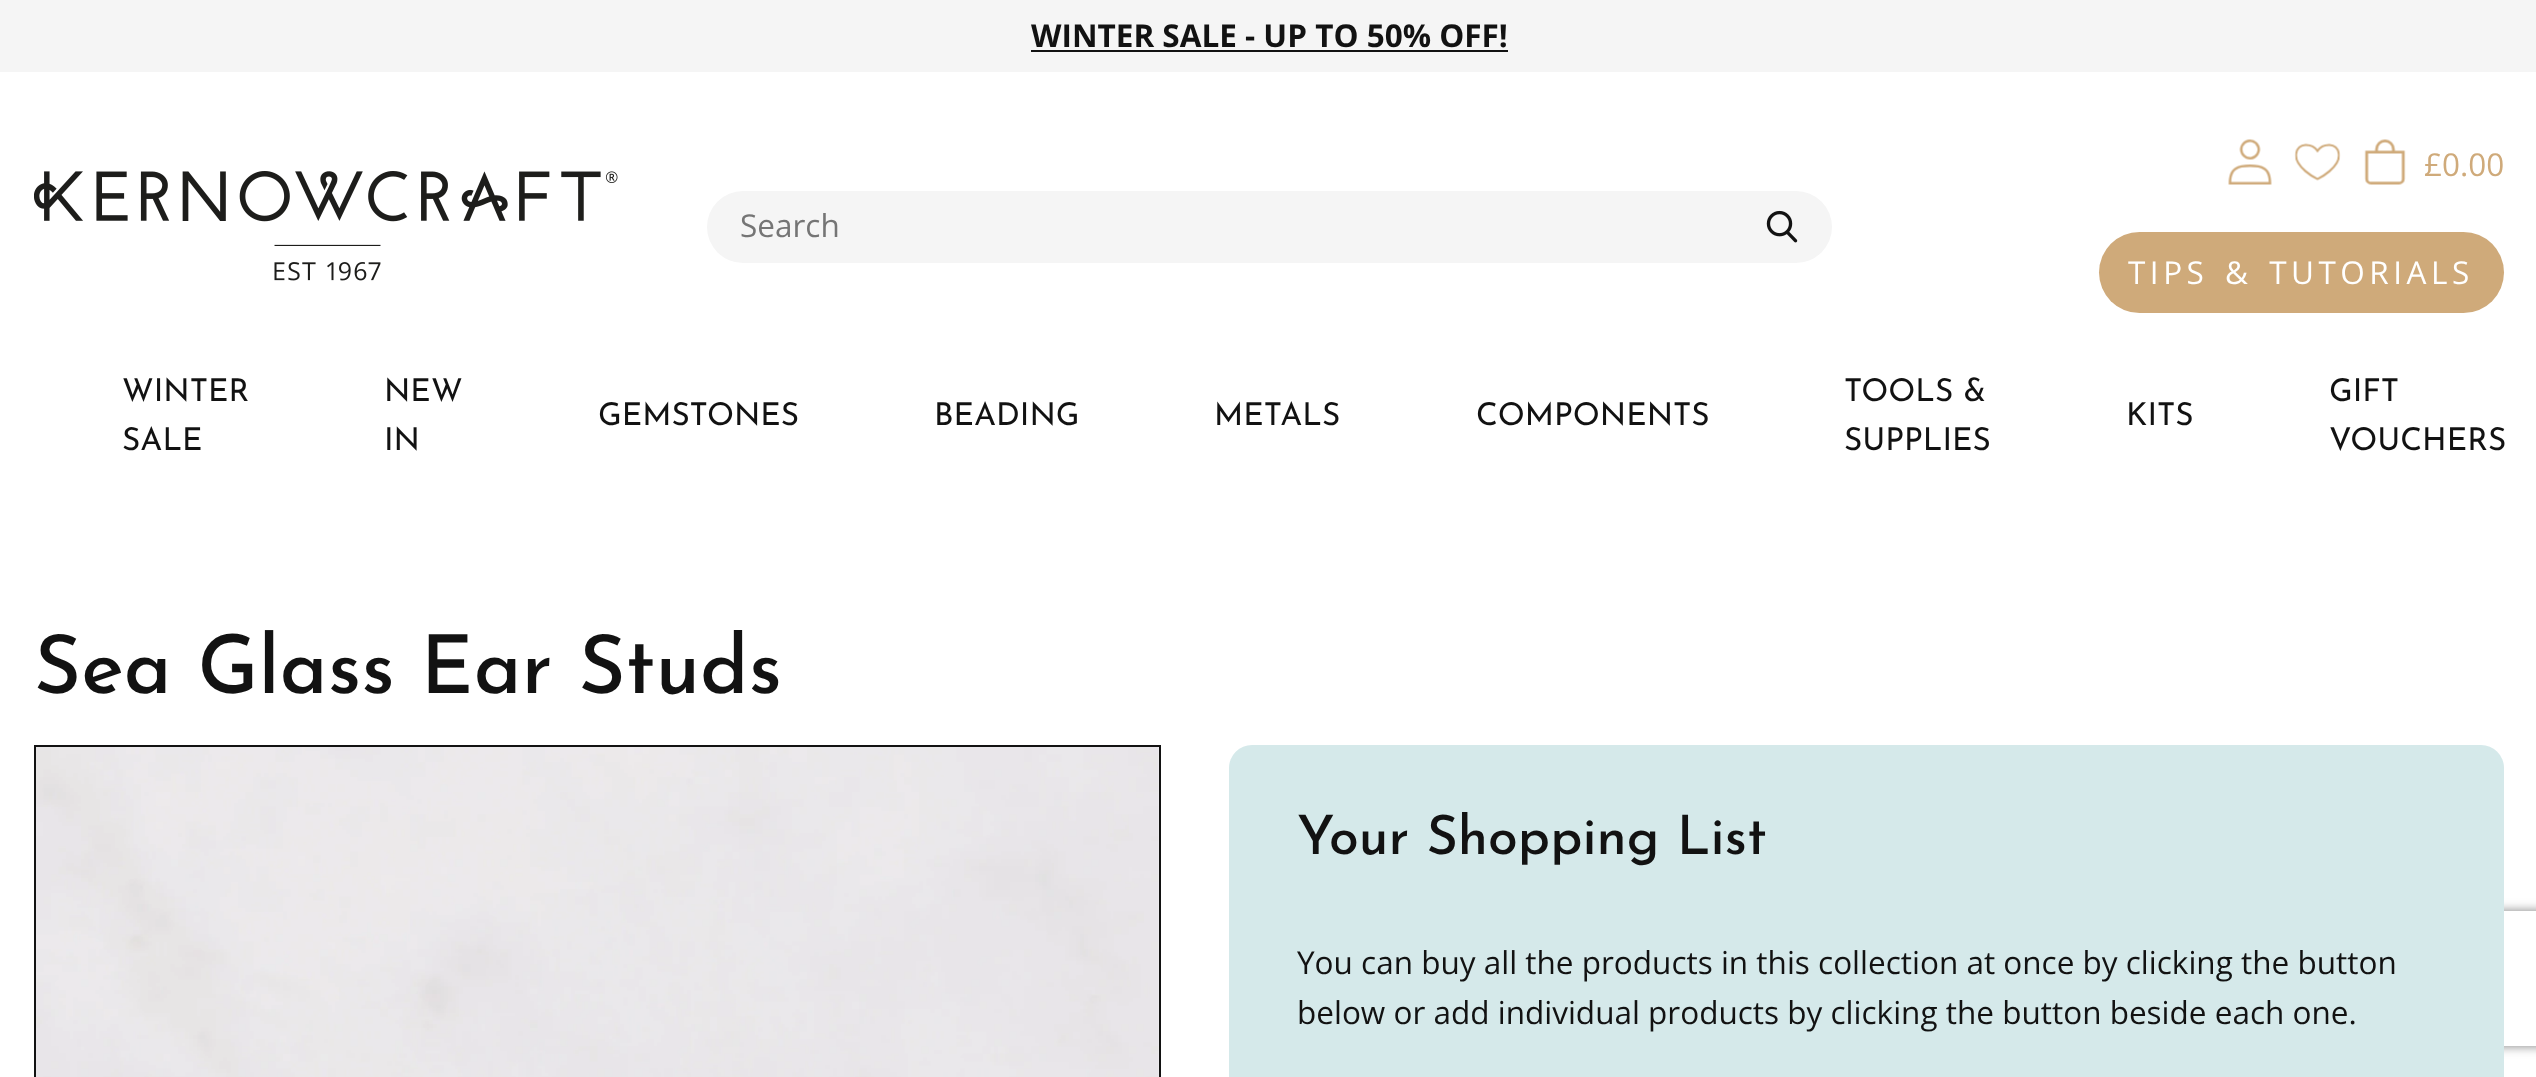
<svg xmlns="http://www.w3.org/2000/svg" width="2536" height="1077">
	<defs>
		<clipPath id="clip1"><path d="M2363 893H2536V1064H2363ZM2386 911H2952C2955 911 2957 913 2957 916V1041C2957 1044 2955 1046 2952 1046H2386C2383 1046 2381 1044 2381 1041V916C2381 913 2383 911 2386 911Z" clip-rule="evenodd" /></clipPath>
	</defs>
	<rect width="100%" height="100%" fill="#FFFFFF" />
	<rect x="0" y="0" width="2536" height="72" fill="#F5F5F5" />
	<text x="1031" y="47" font-family="Open Sans" font-size="31.5" font-weight="700" fill="#121212">WINTER SALE - UP TO 50% OFF!</text>
	<rect x="1031" y="50" width="477" height="2" fill="#121212" />
	<image x="34" y="171" width="584" height="110" href="assets/img1.png" />
	<rect x="707" y="191" width="1125" height="72" rx="36" fill="#F5F5F5" />
	<text x="740" y="237" font-family="Open Sans" font-size="31.5" fill="#757575">Search</text>
	<image x="1766" y="210" width="32" height="33" href="assets/img2.png" />
	<image x="2228" y="139" width="44" height="46" href="assets/img3.png" />
	<image x="2294" y="143" width="47" height="38" href="assets/img4.png" />
	<image x="2364" y="139" width="42" height="46" href="assets/img5.png" />
	<text x="2424" y="176" font-family="Open Sans" font-size="31.5" fill="#CFAA7A">£0.00</text>
	<rect x="2099" y="232" width="405" height="81" rx="40.5" fill="#CFAA7A" />
	<text x="2128" y="284" word-spacing="4" font-family="Open Sans" font-size="31.5" letter-spacing="4.5" fill="#FFFFFF">TIPS &amp; TUTORIALS</text>
	<g font-family="Josefin Sans" font-size="31.5" fill="#121212">
		<text x="122" y="401">WINTER</text>
		<text x="122" y="450">SALE</text>
		<text x="384" y="401">NEW</text>
		<text x="384" y="450">IN</text>
		<text x="598" y="425">GEMSTONES</text>
		<text x="934" y="425">BEADING</text>
		<text x="1214" y="425">METALS</text>
		<text x="1476" y="425">COMPONENTS</text>
		<text x="1844" y="401">TOOLS &amp;</text>
		<text x="1844" y="450">SUPPLIES</text>
		<text x="2126" y="425">KITS</text>
		<text x="2329" y="401">GIFT</text>
		<text x="2329" y="450">VOUCHERS</text>
	</g>
	<text x="34" y="693" font-family="Josefin Sans" font-size="81" font-weight="500" fill="#121212">Sea Glass Ear Studs</text>
	<rect x="35" y="746" width="1125" height="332" fill="none" stroke="#121212" stroke-width="2" />
	<image x="36" y="747" width="1123" height="330" href="assets/img6.png" />
	<g clip-path="url(#clip1)">
		<rect x="2381" y="911" width="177" height="135" rx="5" fill="#808080" filter="blur(5.5px)" />
	</g>
	<rect x="1229" y="745" width="1275" height="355" rx="23" fill="#D5E9EA" />
	<text x="1297" y="854" font-family="Josefin Sans" font-size="54" font-weight="500" fill="#121212">Your Shopping List</text>
	<g font-family="Open Sans" font-size="31.5" fill="#121212">
		<text x="1297" y="974">You can buy all the products in this collection at once by clicking the button</text>
		<text x="1297" y="1024">below or add individual products by clicking the button beside each one.</text>
	</g>
</svg>
